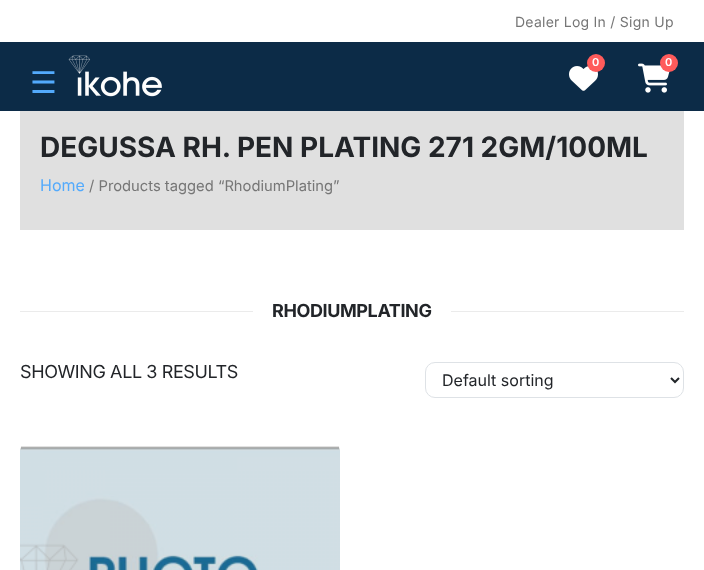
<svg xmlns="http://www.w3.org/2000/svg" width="704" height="570">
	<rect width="100%" height="100%" fill="#FFFFFF" />
	<rect x="0" y="42" width="704" height="69" fill="#0C2B47" />
	<text x="515" y="27" font-family="Inter" font-size="14" letter-spacing="0.25" fill="#767676">Dealer Log In / Sign Up</text>
	<image x="569" y="66" width="29" height="25" href="assets/img1.png" />
	<circle cx="596" cy="63" r="9" fill="#FF5B5B" />
	<text x="592" y="66" font-family="Inter" font-size="11" font-weight="600" fill="#FFFFFF">0</text>
	<image x="638" y="63" width="32" height="30" href="assets/img2.png" />
	<circle cx="669" cy="63" r="9" fill="#FF5B5B" />
	<text x="665" y="66" font-family="Inter" font-size="11" font-weight="600" fill="#FFFFFF">0</text>
	<text x="30" y="93" font-family="DejaVu Sans" font-size="30" fill="#53AAFC">☰</text>
	<image x="68" y="55" width="94" height="42" href="assets/img3.png" />
	<rect x="20" y="111" width="664" height="119" fill="#E0E0E0" />
	<text x="40" y="157" font-family="Inter" font-size="28" font-weight="700" fill="#222529">DEGUSSA RH. PEN PLATING 271 2GM/100ML</text>
	<text x="40" y="191" font-family="Inter" font-size="16" fill="#53AAFC">Home</text>
	<text x="89" y="191" font-family="Inter" font-size="14.75" fill="#767676">/ Products tagged “RhodiumPlating”</text>
	<rect x="20" y="311" width="233" height="1" fill="#EBEBEB" />
	<text x="272" y="317" font-family="Inter" font-size="18" font-weight="700" letter-spacing="-0.4" fill="#222529">RHODIUMPLATING</text>
	<rect x="451" y="311" width="233" height="1" fill="#EBEBEB" />
	<text x="20" y="378" font-family="Inter" font-size="18" letter-spacing="-0.4" fill="#222529">SHOWING ALL 3 RESULTS</text>
	<rect x="425.5" y="362.5" width="258" height="35" rx="9.5" fill="none" stroke="#DEE2E6" />
	<path d="M671 378L675 382L679 378" fill="none" stroke="#212529" stroke-width="2" />
	<text x="442" y="386" font-family="Inter" font-size="16" fill="#222529">Default sorting</text>
	<image x="20" y="446" width="320" height="124" href="assets/img4.png" />
</svg>
